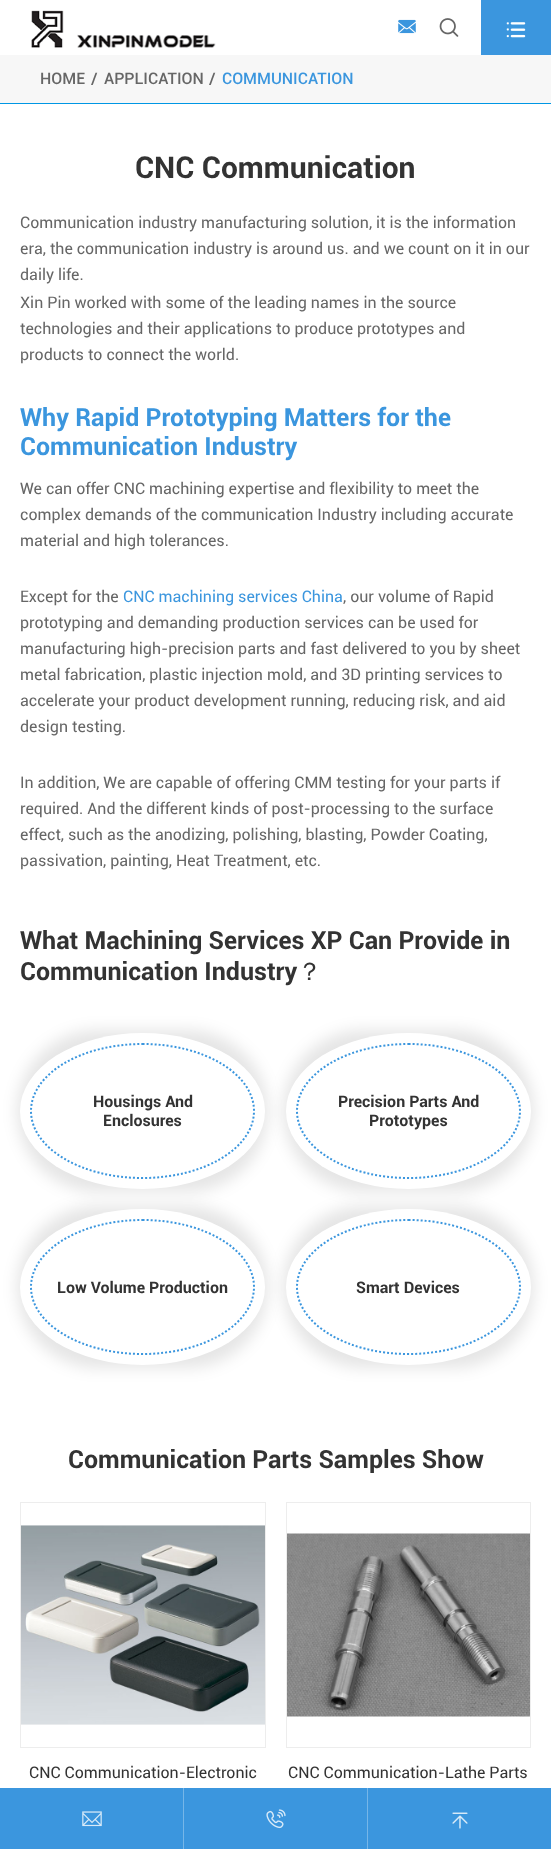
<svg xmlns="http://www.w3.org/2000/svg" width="551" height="1849">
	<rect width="100%" height="100%" fill="#FFFFFF" />
	<image x="31" y="10" width="185" height="38" href="assets/img1.png" />
	<image x="398" y="19" width="18" height="15" href="assets/img2.png" />
	<image x="439" y="18" width="20" height="19" href="assets/img3.png" />
	<rect x="481" y="0" width="70" height="55" fill="#3B96DE" />
	<image x="506" y="22" width="20" height="16" href="assets/img4.png" />
	<rect x="0" y="55" width="551" height="48" fill="#F7F7F7" />
	<rect x="0" y="103" width="551" height="1" fill="#0097E4" />
	<g font-family="Roboto" font-size="16" font-weight="500" fill="#666666">
		<text x="40" y="84">HOME</text>
		<text x="91" y="84">/</text>
		<text x="104" y="84">APPLICATION</text>
		<text x="209" y="84">/</text>
	</g>
	<text x="222" y="84" font-family="Roboto" font-size="16" font-weight="500" fill="#3B96DE">COMMUNICATION</text>
	<text x="135" y="178" font-family="Roboto" font-size="30" font-weight="700" fill="#333333">CNC Communication</text>
	<g font-family="Roboto" font-size="16" fill="#666666">
		<text x="20" y="228">Communication industry manufacturing solution, it is the information</text>
		<text x="20" y="254">era, the communication industry is around us. and we count on it in our</text>
		<text x="20" y="280">daily life.</text>
		<text x="20" y="308">Xin Pin worked with some of the leading names in the source</text>
		<text x="20" y="334">technologies and their applications to produce prototypes and</text>
		<text x="20" y="360">products to connect the world.</text>
	</g>
	<g font-family="Roboto" font-size="25" font-weight="700" fill="#3B96DE">
		<text x="20" y="426">Why Rapid Prototyping Matters for the</text>
		<text x="20" y="455">Communication Industry</text>
	</g>
	<g font-family="Roboto" font-size="16" fill="#666666">
		<text x="20" y="494">We can offer CNC machining expertise and flexibility to meet the</text>
		<text x="20" y="520">complex demands of the communication Industry including accurate</text>
		<text x="20" y="546">material and high tolerances.</text>
		<text x="20" y="602">Except for the</text>
	</g>
	<text x="123" y="602" font-family="Roboto" font-size="16" fill="#3B96DE">CNC machining services China</text>
	<g font-family="Roboto" font-size="16" fill="#666666">
		<text x="343" y="602">, our volume of Rapid</text>
		<text x="20" y="628">prototyping and demanding production services can be used for</text>
		<text x="20" y="654">manufacturing high-precision parts and fast delivered to you by sheet</text>
		<text x="20" y="680">metal fabrication, plastic injection mold, and 3D printing services to</text>
		<text x="20" y="706">accelerate your product development running, reducing risk, and aid</text>
		<text x="20" y="732">design testing.</text>
		<text x="20" y="788">In addition, We are capable of offering CMM testing for your parts if</text>
		<text x="20" y="814">required. And the different kinds of post-processing to the surface</text>
		<text x="20" y="840">effect, such as the anodizing, polishing, blasting, Powder Coating,</text>
		<text x="20" y="866">passivation, painting, Heat Treatment, etc.</text>
	</g>
	<g font-family="Roboto" font-size="25" font-weight="700" fill="#333333">
		<text x="20" y="949">What Machining Services XP Can Provide in</text>
		<text x="20" y="980">Communication Industry</text>
	</g>
	<text x="297" y="980" font-family="WenQuanYi Zen Hei" font-size="25" font-weight="500" fill="#333333">？</text>
	<rect x="17" y="1030" width="251" height="162" rx="81" fill="#000000" fill-opacity="0.1" filter="blur(7.5px)" />
	<ellipse cx="142.5" cy="1111" rx="122.5" ry="78" fill="#FFFFFF" />
	<path d="M142.5 1044C204 1044 254 1074 254 1111C254 1148 204 1178 142.5 1178C81 1178 31 1148 31 1111C31 1074 81 1044 142.5 1044Z" fill="none" stroke="#3B96DE" stroke-width="2" stroke-dasharray="2 2" />
	<g font-family="Roboto" font-size="16" font-weight="700" fill="#333333">
		<text x="93" y="1107">Housings And</text>
		<text x="103" y="1126">Enclosures</text>
	</g>
	<rect x="283" y="1030" width="251" height="162" rx="81" fill="#000000" fill-opacity="0.1" filter="blur(7.5px)" />
	<ellipse cx="408.5" cy="1111" rx="122.5" ry="78" fill="#FFFFFF" />
	<path d="M408.5 1044C470 1044 520 1074 520 1111C520 1148 470 1178 408.5 1178C347 1178 297 1148 297 1111C297 1074 347 1044 408.5 1044Z" fill="none" stroke="#3B96DE" stroke-width="2" stroke-dasharray="2 2" />
	<g font-family="Roboto" font-size="16" font-weight="700" fill="#333333">
		<text x="338" y="1107">Precision Parts And</text>
		<text x="369" y="1126">Prototypes</text>
	</g>
	<rect x="17" y="1206" width="251" height="162" rx="81" fill="#000000" fill-opacity="0.1" filter="blur(7.5px)" />
	<ellipse cx="142.5" cy="1287" rx="122.5" ry="78" fill="#FFFFFF" />
	<path d="M142.5 1220C204 1220 254 1250 254 1287C254 1324 204 1354 142.5 1354C81 1354 31 1324 31 1287C31 1250 81 1220 142.5 1220Z" fill="none" stroke="#3B96DE" stroke-width="2" stroke-dasharray="2 2" />
	<text x="57" y="1293" font-family="Roboto" font-size="16" font-weight="700" fill="#333333">Low Volume Production</text>
	<rect x="283" y="1206" width="251" height="162" rx="81" fill="#000000" fill-opacity="0.1" filter="blur(7.5px)" />
	<ellipse cx="408.5" cy="1287" rx="122.5" ry="78" fill="#FFFFFF" />
	<path d="M408.5 1220C470 1220 520 1250 520 1287C520 1324 470 1354 408.5 1354C347 1354 297 1324 297 1287C297 1250 347 1220 408.5 1220Z" fill="none" stroke="#3B96DE" stroke-width="2" stroke-dasharray="2 2" />
	<text x="356" y="1293" font-family="Roboto" font-size="16" font-weight="700" fill="#333333">Smart Devices</text>
	<text x="68" y="1468" font-family="Roboto" font-size="25" font-weight="700" fill="#333333">Communication Parts Samples Show</text>
	<rect x="20.5" y="1502.5" width="245" height="245" fill="none" stroke="#EDEDED" />
	<image x="21" y="1525" width="244" height="200" href="assets/img5.png" />
	<text x="29" y="1778" font-family="Roboto" font-size="16" fill="#333333">CNC Communication-Electronic</text>
	<rect x="286.5" y="1502.5" width="244" height="245" fill="none" stroke="#EDEDED" />
	<image x="287" y="1533" width="243" height="184" href="assets/img6.png" />
	<text x="288" y="1778" font-family="Roboto" font-size="16" fill="#333333">CNC Communication-Lathe Parts</text>
	<rect x="0" y="1788" width="551" height="61" fill="#3B96DE" />
	<rect x="183" y="1788" width="1" height="61" fill="#76B6E8" />
	<image x="82" y="1811" width="20" height="16" href="assets/img7.png" />
	<rect x="367" y="1788" width="1" height="61" fill="#76B6E8" />
	<image x="266" y="1809" width="20" height="20" href="assets/img8.png" />
	<image x="452" y="1812" width="16" height="17" href="assets/img9.png" />
</svg>
